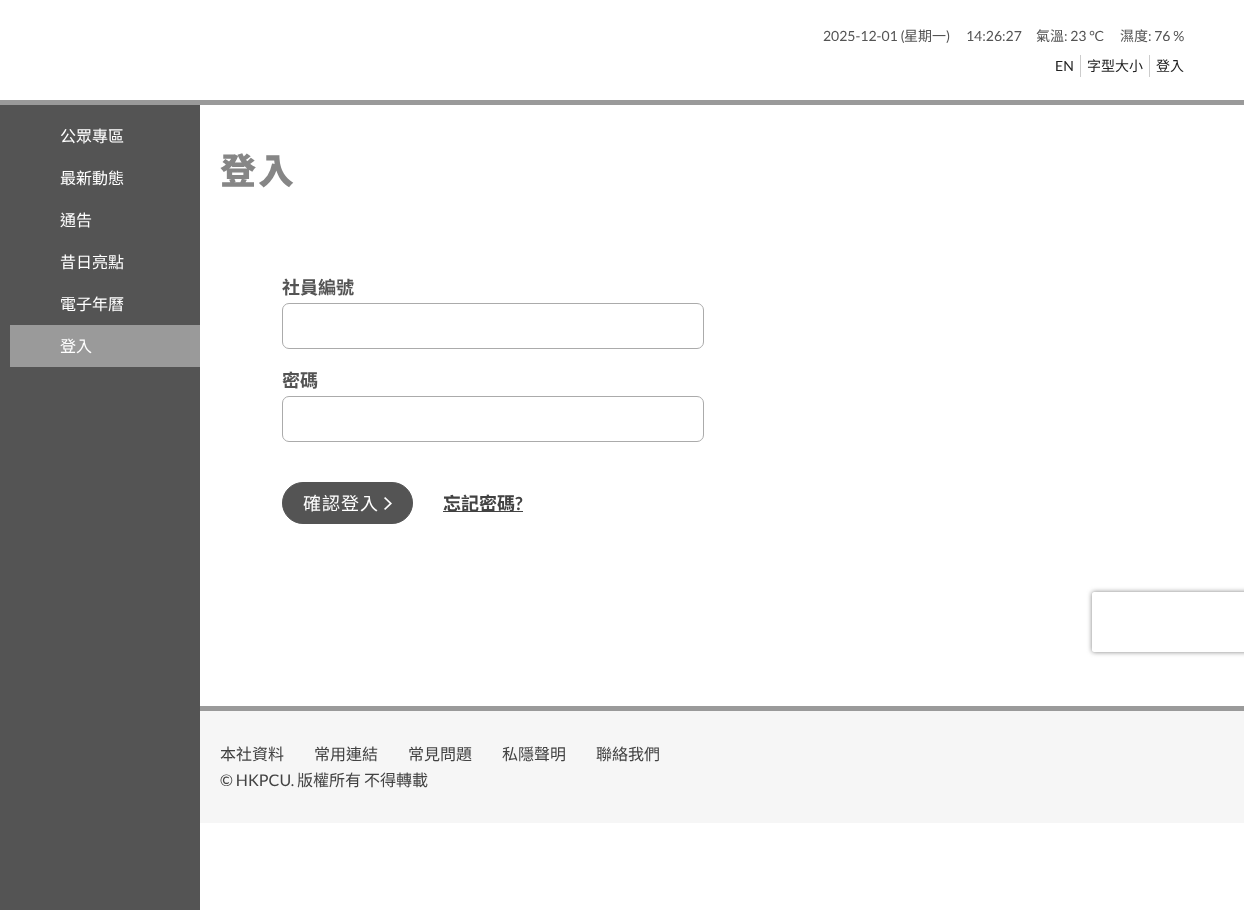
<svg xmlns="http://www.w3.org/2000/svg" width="1244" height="910">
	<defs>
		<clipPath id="clip1"><path d="M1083 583H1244V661H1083ZM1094 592H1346C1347 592 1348 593 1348 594V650C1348 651 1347 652 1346 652H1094C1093 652 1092 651 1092 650V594C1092 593 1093 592 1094 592Z" clip-rule="evenodd" /></clipPath>
	</defs>
	<rect width="100%" height="100%" fill="#FFFFFF" />
	<rect x="0" y="100" width="1244" height="5" fill="#9A9A9A" />
	<text x="823" y="41" font-family="Lato" font-size="14" fill="#545454">2025-12-01 (</text>
	<text x="904" y="41" font-family="Noto Sans HK" font-size="14" fill="#545454">星期一</text>
	<g font-family="Lato" font-size="14" fill="#545454">
		<text x="946" y="41">)</text>
		<text x="966" y="41">14:26:27</text>
	</g>
	<text x="1036" y="41" font-family="Noto Sans HK" font-size="14" fill="#545454">氣溫</text>
	<text x="1064" y="41" font-family="Lato" font-size="14" fill="#545454">: 23 °C</text>
	<text x="1120" y="41" font-family="Noto Sans HK" font-size="14" fill="#545454">濕度</text>
	<text x="1148" y="41" font-family="Lato" font-size="14" fill="#545454">: 76 %</text>
	<text x="1055" y="71" font-family="Lato" font-size="14" fill="#222222">EN</text>
	<rect x="1080" y="55" width="1" height="22" fill="#CCCCCC" />
	<text x="1087" y="71" font-family="Noto Sans HK" font-size="14" fill="#222222">字型大小</text>
	<rect x="1149" y="55" width="1" height="22" fill="#CCCCCC" />
	<text x="1156" y="71" font-family="Noto Sans HK" font-size="14" fill="#222222">登入</text>
	<rect x="0" y="105" width="200" height="805" fill="#545454" />
	<g font-family="Noto Sans HK" font-size="16" fill="#FFFFFF">
		<text x="60" y="142">公眾專區</text>
		<text x="60" y="184">最新動態</text>
		<text x="60" y="226">通告</text>
		<text x="60" y="268">昔日亮點</text>
		<text x="60" y="310">電子年曆</text>
	</g>
	<rect x="10" y="325" width="190" height="42" fill="#9A9A9A" />
	<text x="60" y="352" font-family="Noto Sans HK" font-size="16" fill="#FFFFFF">登入</text>
	<text x="220" y="184" font-family="Noto Sans HK" font-size="36" font-weight="900" letter-spacing="2" fill="#868686">登入</text>
	<text x="282" y="294" font-family="Noto Sans HK" font-size="18" font-weight="700" fill="#545454">社員編號</text>
	<rect x="282.5" y="303.5" width="421" height="45" rx="6.5" fill="none" stroke="#ABABAB" />
	<text x="282" y="387" font-family="Noto Sans HK" font-size="18" font-weight="700" fill="#545454">密碼</text>
	<rect x="282.5" y="396.5" width="421" height="45" rx="6.5" fill="none" stroke="#ABABAB" />
	<g clip-path="url(#clip1)">
		<rect x="1092" y="592" width="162" height="60" rx="2" fill="#808080" filter="blur(2.5px)" />
	</g>
	<rect x="282.5" y="482.5" width="130" height="41" rx="20.5" fill="#545454" stroke="#545454" />
	<text x="303" y="510" font-family="Noto Sans HK" font-size="18" letter-spacing="1" fill="#FFFFFF">確認登入</text>
	<image x="384" y="497" width="8" height="13" href="assets/img1.png" />
	<rect x="443" y="511" width="80" height="1" fill="#424242" />
	<text x="443" y="510" font-family="Noto Sans HK" font-size="18" font-weight="700" fill="#424242">忘記密碼</text>
	<text x="515" y="510" font-family="Lato" font-size="18" font-weight="700" fill="#424242">?</text>
	<rect x="200" y="711" width="1044" height="112" fill="#F6F6F6" />
	<rect x="200" y="706" width="1044" height="5" fill="#9A9A9A" />
	<g font-family="Noto Sans HK" font-size="16" fill="#424242">
		<text x="220" y="760">本社資料</text>
		<text x="314" y="760">常用連結</text>
		<text x="408" y="760">常見問題</text>
		<text x="502" y="760">私隱聲明</text>
		<text x="596" y="760">聯絡我們</text>
	</g>
	<text x="220" y="786" font-family="Lato" font-size="16" fill="#424242">© HKPCU.</text>
	<g font-family="Noto Sans HK" font-size="16" fill="#424242">
		<text x="297" y="786">版權所有</text>
		<text x="364" y="786">不得轉載</text>
	</g>
</svg>
